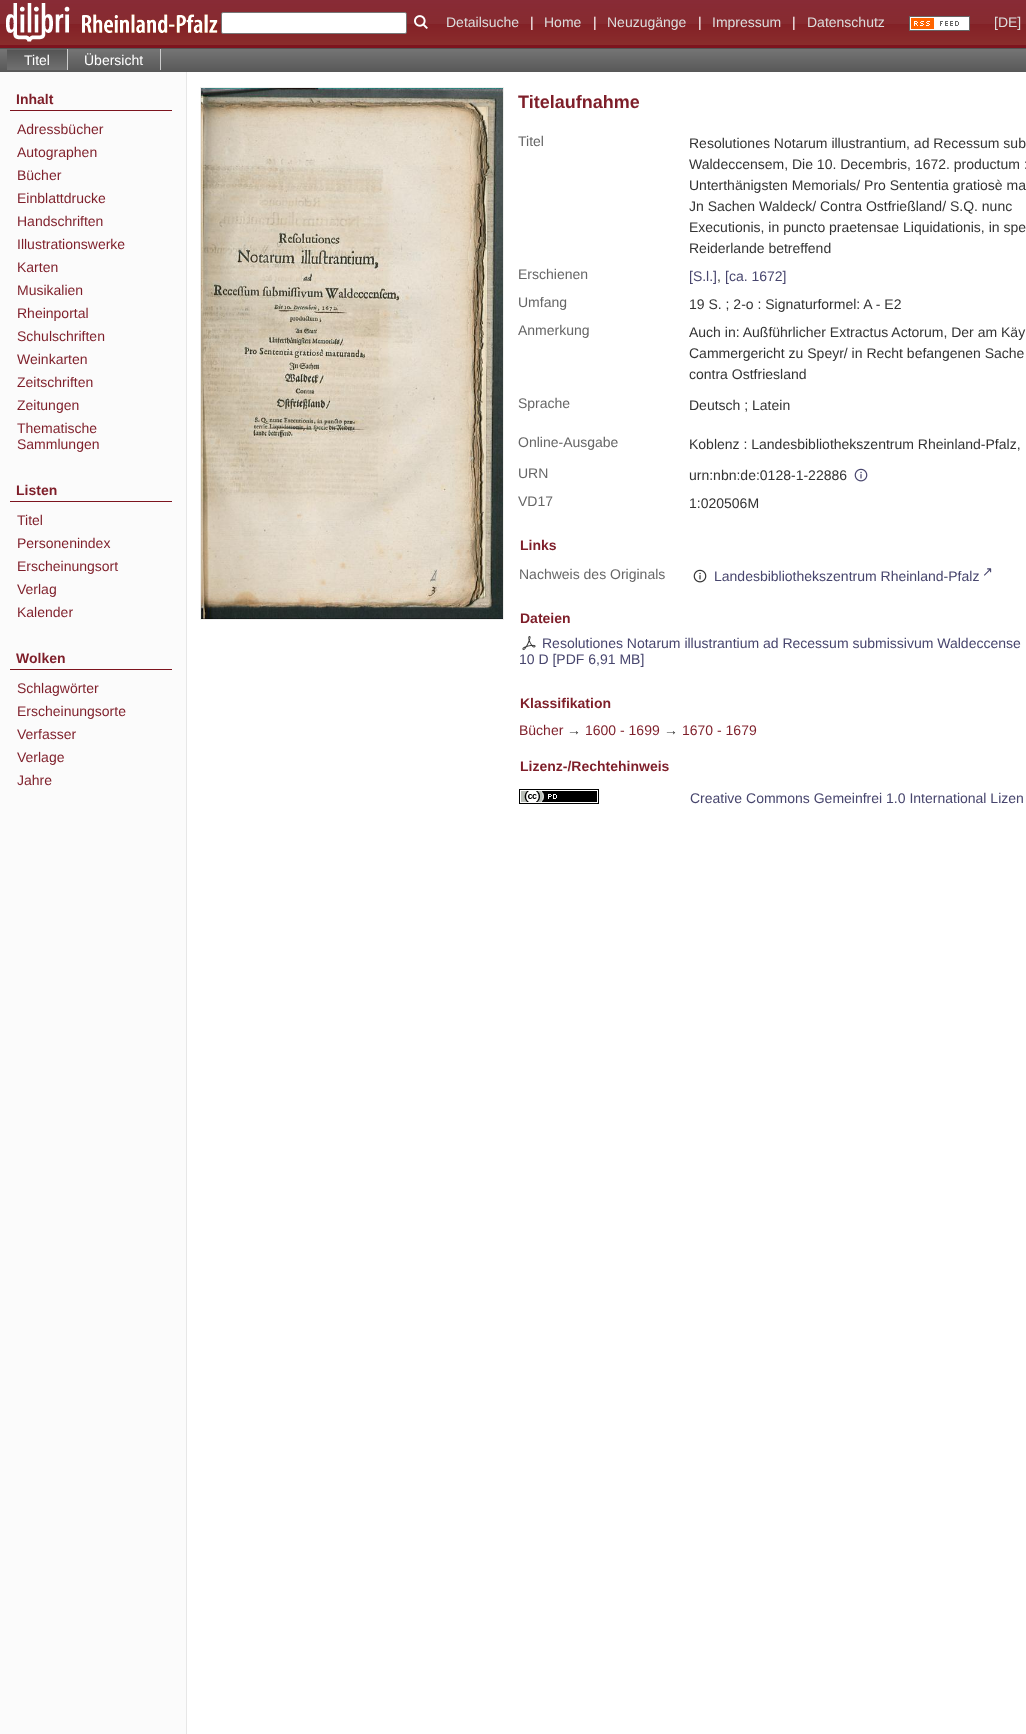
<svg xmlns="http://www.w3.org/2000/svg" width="1026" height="1734">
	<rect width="100%" height="100%" fill="#FFFFFF" />
	<rect x="0" y="45" width="1026" height="3" fill="#7D141E" />
	<image x="0" y="0" width="1026" height="45" href="assets/img1.png" />
	<image x="6" y="3" width="212" height="39" href="assets/img2.png" />
	<rect x="221.5" y="12.5" width="185" height="21" rx="1.5" fill="#FFFFFF" stroke="#767676" />
	<image x="414" y="15" width="14" height="14" href="assets/img3.png" />
	<text x="446" y="27" font-family="Liberation Sans" font-size="14" fill="#DDDDDD">Detailsuche</text>
	<text x="530" y="27" font-family="Liberation Sans" font-size="14" fill="#FFFFFF">|</text>
	<text x="544" y="27" font-family="Liberation Sans" font-size="14" fill="#DDDDDD">Home</text>
	<text x="593" y="27" font-family="Liberation Sans" font-size="14" fill="#FFFFFF">|</text>
	<text x="607" y="27" font-family="Liberation Sans" font-size="14" fill="#DDDDDD">Neuzugänge</text>
	<text x="698" y="27" font-family="Liberation Sans" font-size="14" fill="#FFFFFF">|</text>
	<text x="712" y="27" font-family="Liberation Sans" font-size="14" fill="#DDDDDD">Impressum</text>
	<text x="792" y="27" font-family="Liberation Sans" font-size="14" fill="#FFFFFF">|</text>
	<text x="807" y="27" font-family="Liberation Sans" font-size="14" fill="#DDDDDD">Datenschutz</text>
	<image x="909" y="16" width="61" height="15" href="assets/img4.png" />
	<text x="994" y="27" font-family="Liberation Sans" font-size="14" fill="#DDDDDD">[DE]</text>
	<image x="0" y="49" width="1026" height="23" href="assets/img5.png" />
	<rect x="0" y="48" width="1026" height="1" fill="#555555" />
	<image x="7" y="49" width="60" height="21" href="assets/img6.png" />
	<rect x="67" y="49" width="1" height="21" fill="#CCCCCC" />
	<text x="24" y="65" font-family="Liberation Sans" font-size="14" fill="#FFFFFF">Titel</text>
	<rect x="160" y="49" width="1" height="21" fill="#CCCCCC" />
	<text x="84" y="65" font-family="Liberation Sans" font-size="14" fill="#FFFFFF">Übersicht</text>
	<rect x="0" y="72" width="186" height="1662" fill="#FBFBFB" />
	<rect x="186" y="72" width="1" height="1662" fill="#E7E7E7" />
	<rect x="10" y="110" width="162" height="1" fill="#7D141E" />
	<text x="16" y="104" font-family="Liberation Sans" font-size="14" font-weight="700" fill="#7E1E29">Inhalt</text>
	<g font-family="Liberation Sans" font-size="14" fill="#7E1E29">
		<text x="17" y="134">Adressbücher</text>
		<text x="17" y="157">Autographen</text>
		<text x="17" y="180">Bücher</text>
		<text x="17" y="203">Einblattdrucke</text>
		<text x="17" y="226">Handschriften</text>
		<text x="17" y="249">Illustrationswerke</text>
		<text x="17" y="272">Karten</text>
		<text x="17" y="295">Musikalien</text>
		<text x="17" y="318">Rheinportal</text>
		<text x="17" y="341">Schulschriften</text>
		<text x="17" y="364">Weinkarten</text>
		<text x="17" y="387">Zeitschriften</text>
		<text x="17" y="410">Zeitungen</text>
		<text x="17" y="433">Thematische</text>
		<text x="17" y="449">Sammlungen</text>
	</g>
	<rect x="10" y="501" width="162" height="1" fill="#7D141E" />
	<text x="16" y="495" font-family="Liberation Sans" font-size="14" font-weight="700" fill="#7E1E29">Listen</text>
	<g font-family="Liberation Sans" font-size="14" fill="#7E1E29">
		<text x="17" y="525">Titel</text>
		<text x="17" y="548">Personenindex</text>
		<text x="17" y="571">Erscheinungsort</text>
		<text x="17" y="594">Verlag</text>
		<text x="17" y="617">Kalender</text>
	</g>
	<rect x="10" y="669" width="162" height="1" fill="#7D141E" />
	<text x="16" y="663" font-family="Liberation Sans" font-size="14" font-weight="700" fill="#7E1E29">Wolken</text>
	<g font-family="Liberation Sans" font-size="14" fill="#7E1E29">
		<text x="17" y="693">Schlagwörter</text>
		<text x="17" y="716">Erscheinungsorte</text>
		<text x="17" y="739">Verfasser</text>
		<text x="17" y="762">Verlage</text>
		<text x="17" y="785">Jahre</text>
	</g>
	<rect x="200.5" y="87.5" width="303" height="532" fill="none" stroke="#EEEEEC" />
	<image x="201" y="88" width="302" height="531" href="assets/img7.png" />
	<text x="518" y="108" font-family="Liberation Sans" font-size="18" font-weight="700" fill="#7E1E29">Titelaufnahme</text>
	<text x="518" y="146" font-family="Liberation Sans" font-size="14" fill="#666666">Titel</text>
	<g font-family="Liberation Sans" font-size="14" fill="#333333">
		<text x="689" y="148">Resolutiones Notarum illustrantium, ad Recessum sub</text>
		<text x="689" y="169">Waldeccensem, Die 10. Decembris, 1672. productum</text>
		<text x="1024" y="169">:</text>
		<text x="689" y="190">Unterthänigsten Memorials/ Pro Sententia gratiosè ma</text>
		<text x="689" y="211">Jn Sachen Waldeck/ Contra Ostfrießland/ S.Q. nunc</text>
		<text x="689" y="232">Executionis, in puncto praetensae Liquidationis, in spe</text>
		<text x="689" y="253">Reiderlande betreffend</text>
	</g>
	<text x="518" y="279" font-family="Liberation Sans" font-size="14" fill="#666666">Erschienen</text>
	<text x="689" y="281" font-family="Liberation Sans" font-size="14" fill="#47456D">[S.l.]</text>
	<text x="717" y="281" font-family="Liberation Sans" font-size="14" fill="#333333">,</text>
	<text x="725" y="281" font-family="Liberation Sans" font-size="14" fill="#47456D">[ca. 1672]</text>
	<text x="518" y="307" font-family="Liberation Sans" font-size="14" fill="#666666">Umfang</text>
	<text x="689" y="309" font-family="Liberation Sans" font-size="14" fill="#333333">19 S. ; 2-o : Signaturformel: A - E2</text>
	<text x="518" y="335" font-family="Liberation Sans" font-size="14" fill="#666666">Anmerkung</text>
	<g font-family="Liberation Sans" font-size="14" fill="#333333">
		<text x="689" y="337">Auch in: Außführlicher Extractus Actorum, Der am Käy</text>
		<text x="689" y="358">Cammergericht zu Speyr/ in Recht befangenen Sache</text>
		<text x="689" y="379">contra Ostfriesland</text>
	</g>
	<text x="518" y="408" font-family="Liberation Sans" font-size="14" fill="#666666">Sprache</text>
	<text x="689" y="410" font-family="Liberation Sans" font-size="14" fill="#333333">Deutsch ; Latein</text>
	<text x="518" y="447" font-family="Liberation Sans" font-size="14" fill="#666666">Online-Ausgabe</text>
	<text x="689" y="449" font-family="Liberation Sans" font-size="14" fill="#333333">Koblenz : Landesbibliothekszentrum Rheinland-Pfalz,</text>
	<text x="518" y="478" font-family="Liberation Sans" font-size="14" fill="#666666">URN</text>
	<text x="689" y="480" font-family="Liberation Sans" font-size="14" fill="#333333">urn:nbn:de:0128-1-22886</text>
	<image x="854" y="468" width="14" height="14" href="assets/img8.png" />
	<text x="518" y="506" font-family="Liberation Sans" font-size="14" fill="#666666">VD17</text>
	<text x="689" y="508" font-family="Liberation Sans" font-size="14" fill="#333333">1:020506M</text>
	<text x="520" y="550" font-family="Liberation Sans" font-size="14" font-weight="700" fill="#7E1E29">Links</text>
	<text x="519" y="579" font-family="Liberation Sans" font-size="14" fill="#666666">Nachweis des Originals</text>
	<image x="693" y="569" width="14" height="14" href="assets/img9.png" />
	<text x="714" y="581" font-family="Liberation Sans" font-size="14" fill="#47456D">Landesbibliothekszentrum Rheinland-Pfalz</text>
	<text x="982" y="576" font-family="DejaVu Sans" font-size="13" fill="#47456D">↗</text>
	<text x="520" y="623" font-family="Liberation Sans" font-size="14" font-weight="700" fill="#7E1E29">Dateien</text>
	<image x="522" y="636" width="14" height="15" href="assets/img10.png" />
	<g font-family="Liberation Sans" font-size="14" fill="#47456D">
		<text x="542" y="648">Resolutiones Notarum illustrantium ad Recessum submissivum Waldeccense</text>
		<text x="519" y="664">10 D [PDF 6,91 MB]</text>
	</g>
	<text x="520" y="708" font-family="Liberation Sans" font-size="14" font-weight="700" fill="#7E1E29">Klassifikation</text>
	<text x="519" y="735" font-family="Liberation Sans" font-size="14" fill="#7E1E29">Bücher</text>
	<text x="567" y="735" font-family="Liberation Sans" font-size="14" fill="#333333">→</text>
	<text x="585" y="735" font-family="Liberation Sans" font-size="14" fill="#7E1E29">1600 - 1699</text>
	<text x="664" y="735" font-family="Liberation Sans" font-size="14" fill="#333333">→</text>
	<text x="682" y="735" font-family="Liberation Sans" font-size="14" fill="#7E1E29">1670 - 1679</text>
	<text x="520" y="771" font-family="Liberation Sans" font-size="14" font-weight="700" fill="#7E1E29">Lizenz-/Rechtehinweis</text>
	<image x="519" y="789" width="80" height="15" href="assets/img11.png" />
	<text x="690" y="803" font-family="Liberation Sans" font-size="14" fill="#47456D">Creative Commons Gemeinfrei 1.0 International Lizen</text>
</svg>
